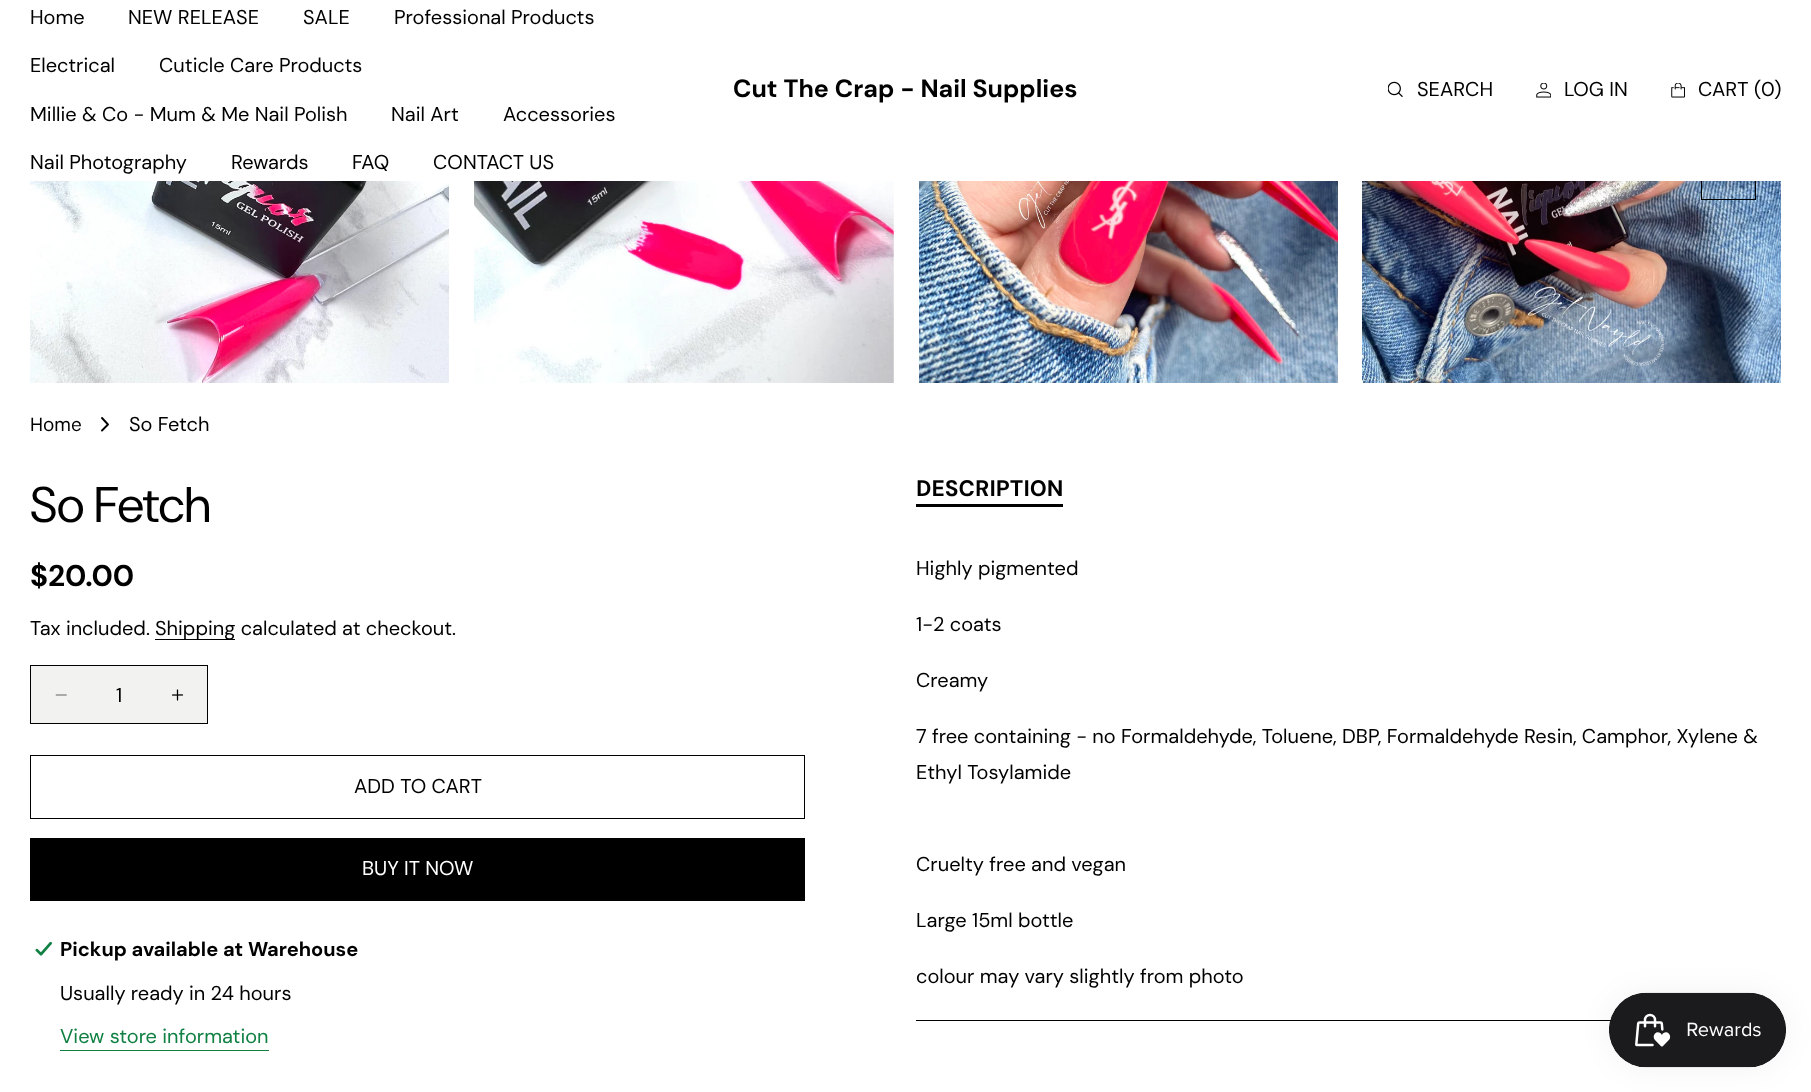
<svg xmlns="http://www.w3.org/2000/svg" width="1811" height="1092">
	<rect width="100%" height="100%" fill="#FFFFFF" />
	<image x="1362" y="181" width="419" height="202" href="assets/img7.png" />
	<rect x="1701.5" y="145.5" width="54" height="54" fill="none" stroke="#000000" />
	<image x="30" y="181" width="419" height="202" href="assets/img4.png" />
	<image x="474" y="181" width="420" height="202" href="assets/img5.png" />
	<image x="919" y="181" width="419" height="202" href="assets/img6.png" />
	<rect x="0" y="0" width="1811" height="181" fill="#000000" fill-opacity="0.5" filter="blur(0.5px)" />
	<rect x="0" y="0" width="1811" height="181" fill="#FFFFFF" />
	<g font-family="'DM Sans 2'" font-size="20" fill="#000000">
		<text x="30" y="24">Home</text>
		<text x="128" y="24">NEW RELEASE</text>
		<text x="303" y="24">SALE</text>
		<text x="394" y="24">Professional Products</text>
		<text x="30" y="72">Electrical</text>
		<text x="159" y="72">Cuticle Care Products</text>
		<text x="30" y="121">Millie &amp; Co - Mum &amp; Me Nail Polish</text>
		<text x="391" y="121">Nail Art</text>
		<text x="503" y="121">Accessories</text>
		<text x="30" y="169">Nail Photography</text>
		<text x="231" y="169">Rewards</text>
		<text x="352" y="169">FAQ</text>
		<text x="433" y="169">CONTACT US</text>
	</g>
	<text x="733" y="97" font-family="'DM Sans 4'" font-size="25" font-weight="700" fill="#000000">Cut The Crap - Nail Supplies</text>
	<image x="1388" y="81" width="15" height="16" href="assets/img1.png" />
	<text x="1417" y="96" font-family="'DM Sans 2'" font-size="20" fill="#000000">SEARCH</text>
	<image x="1536" y="83" width="15" height="15" href="assets/img2.png" />
	<text x="1564" y="96" font-family="'DM Sans 2'" font-size="20" fill="#000000">LOG IN</text>
	<image x="1671" y="83" width="14" height="15" href="assets/img3.png" />
	<g font-family="'DM Sans 2'" font-size="20" fill="#000000">
		<text x="1698" y="96">CART</text>
		<text x="1754" y="96">(</text>
		<text x="1761" y="96">0</text>
		<text x="1774" y="96">)</text>
	</g>
	<text x="30" y="431" font-family="DM Sans" font-size="19" fill="#000000">Home</text>
	<path d="M102 418L108 424.5L102 430.5" fill="none" stroke="#000000" stroke-width="1.9" stroke-linecap="round" stroke-linejoin="round" />
	<text x="129" y="431" font-family="'DM Sans 2'" font-size="20" fill="#000000">So Fetch</text>
	<text x="30" y="522" font-family="'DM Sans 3'" font-size="50" fill="#000000">So Fetch</text>
	<text x="30" y="586" font-family="DM Sans" font-size="30" font-weight="700" fill="#000000">$20.00</text>
	<text x="30" y="635" font-family="'DM Sans 2'" font-size="20" fill="#000000">Tax included.</text>
	<rect x="155" y="639" width="80" height="1" fill="#000000" />
	<text x="155" y="635" font-family="'DM Sans 2'" font-size="20" fill="#000000">Shipping calculated at checkout.</text>
	<rect x="30.5" y="665.5" width="177" height="58" fill="#F2F2F0" stroke="#000000" />
	<image x="55" y="694" width="12" height="2" href="assets/img8.png" />
	<text x="116" y="702" font-family="'DM Sans 2'" font-size="20" fill="#000000">1</text>
	<image x="172" y="689" width="12" height="12" href="assets/img9.png" />
	<rect x="30.5" y="755.5" width="774" height="63" fill="none" stroke="#000000" />
	<text x="354" y="793" font-family="'DM Sans 2'" font-size="20" fill="#000000">ADD TO CART</text>
	<rect x="30" y="838" width="775" height="63" fill="#000000" />
	<text x="362" y="875" font-family="'DM Sans 2'" font-size="20" fill="#FFFFFF">BUY IT NOW</text>
	<image x="34" y="941" width="18" height="16" href="assets/img10.png" />
	<text x="60" y="956" font-family="'DM Sans 2'" font-size="20" font-weight="700" fill="#000000">Pickup available at Warehouse</text>
	<text x="60" y="1000" font-family="'DM Sans 2'" font-size="20" fill="#000000">Usually ready in 24 hours</text>
	<text x="60" y="1043" font-family="'DM Sans 2'" font-size="20" fill="#108043">View store information</text>
	<rect x="60" y="1050" width="209" height="1" fill="#108043" />
	<rect x="916" y="1020" width="695" height="1" fill="#000000" />
	<rect x="916" y="504" width="147" height="3" fill="#000000" />
	<text x="916" y="496" font-family="'DM Sans 3'" font-size="22.5" font-weight="700" fill="#000000">DESCRIPTION</text>
	<g font-family="'DM Sans 2'" font-size="20" fill="#000000">
		<text x="916" y="575">Highly pigmented</text>
		<text x="916" y="631">1-2 coats</text>
		<text x="916" y="687">Creamy</text>
		<text x="916" y="743">7 free containing - no Formaldehyde, Toluene, DBP, Formaldehyde Resin, Camphor, Xylene &amp;</text>
		<text x="916" y="779">Ethyl Tosylamide</text>
		<text x="916" y="871">Cruelty free and vegan</text>
		<text x="916" y="927">Large 15ml bottle</text>
		<text x="916" y="983">colour may vary slightly from photo</text>
	</g>
	<rect x="1609" y="993" width="177" height="75" rx="37.5" fill="#000000" fill-opacity="0.05" filter="blur(15.5px)" />
	<image x="1609" y="992" width="177" height="76" href="assets/img11.png" />
</svg>
